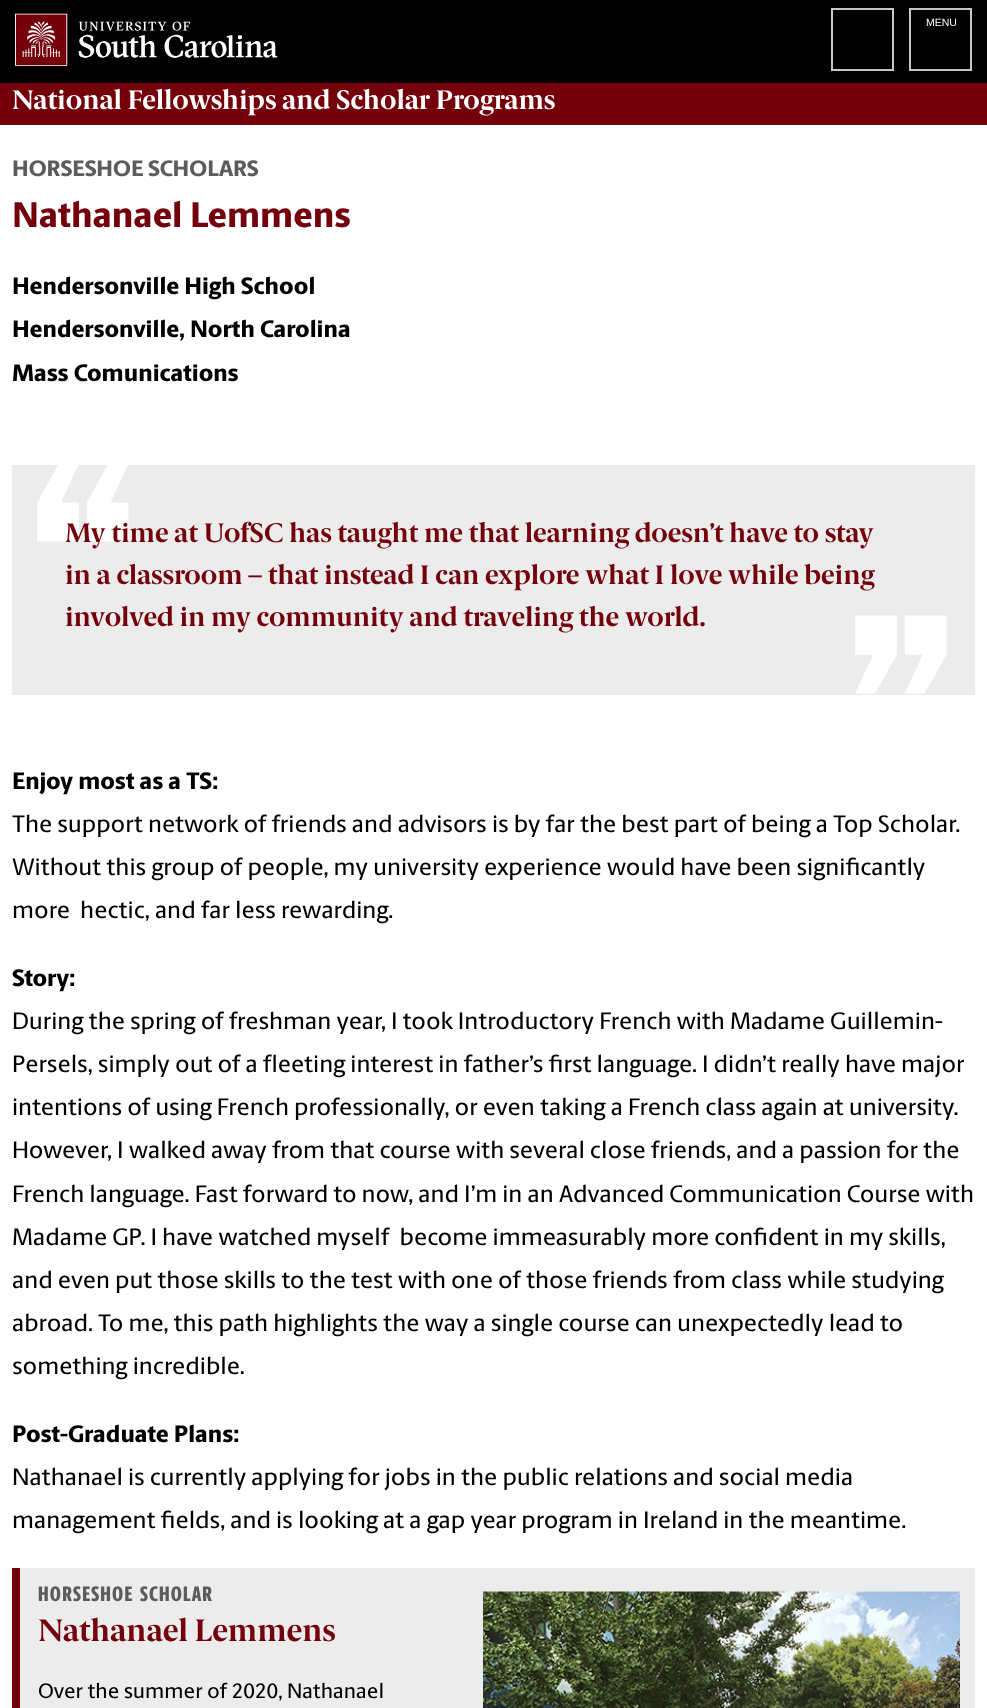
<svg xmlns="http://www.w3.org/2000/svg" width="987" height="1708">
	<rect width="100%" height="100%" fill="#FFFFFF" />
	<rect x="0" y="0" width="987" height="83" fill="#000000" />
	<image x="15" y="13" width="263" height="53" href="assets/img1.png" />
	<rect x="832" y="9" width="61" height="61" fill="none" stroke="#C7C7C7" stroke-width="2" />
	<rect x="910" y="9" width="61" height="61" fill="none" stroke="#C7C7C7" stroke-width="2" />
	<text x="926" y="26" font-family="Liberation Sans" font-size="10.5" fill="#FFFFFF">MENU</text>
	<rect x="0" y="83" width="987" height="42" fill="#73000A" />
	<text x="12" y="109" font-family="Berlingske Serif" font-size="27" font-weight="700" fill="#FFFFFF">National Fellowships and Scholar Programs</text>
	<text x="12" y="176" font-family="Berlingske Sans" font-size="22.5" font-weight="800" fill="#5C5C5C">HORSESHOE SCHOLARS</text>
	<text x="12" y="227" font-family="Berlingske Sans" font-size="36" font-weight="800" fill="#73000A">Nathanael Lemmens</text>
	<g font-family="Berlingske Sans" font-size="24" font-weight="800" fill="#000000">
		<text x="12" y="294">Hendersonville High School</text>
		<text x="12" y="337">Hendersonville, North Carolina</text>
		<text x="12" y="381">Mass Comunications</text>
	</g>
	<rect x="12" y="465" width="963" height="230" fill="#ECECEC" />
	<text x="31" y="665" font-family="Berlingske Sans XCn" font-size="292" font-weight="800" fill="#FFFFFF">“</text>
	<g font-family="Berlingske Serif" font-size="27" font-weight="700" fill="#73000A">
		<text x="65" y="542">My time at UofSC has taught me that learning doesn’t have to stay</text>
		<text x="65" y="584">in a classroom – that instead I can explore what I love while being</text>
		<text x="65" y="626">involved in my community and traveling the world.</text>
	</g>
	<text x="849" y="817" font-family="Berlingske Sans XCn" font-size="292" font-weight="800" fill="#FFFFFF">”</text>
	<text x="12" y="789" font-family="Berlingske Sans" font-size="24" font-weight="800" fill="#000000">Enjoy most as a TS:</text>
	<g font-family="Berlingske Sans" font-size="24" font-weight="500" fill="#000000">
		<text x="12" y="832">The support network of friends and advisors is by far the best part of being a Top Scholar.</text>
		<text x="12" y="875">Without this group of people, my university experience would have been significantly</text>
		<text x="12" y="918" xml:space="preserve">more  hectic, and far less rewarding.</text>
	</g>
	<text x="12" y="986" font-family="Berlingske Sans" font-size="24" font-weight="800" fill="#000000">Story:</text>
	<g font-family="Berlingske Sans" font-size="24" font-weight="500" fill="#000000">
		<text x="12" y="1029">During the spring of freshman year, I took Introductory French with Madame Guillemin-</text>
		<text x="12" y="1072">Persels, simply out of a fleeting interest in father’s first language. I didn’t really have major</text>
		<text x="12" y="1115">intentions of using French professionally, or even taking a French class again at university.</text>
		<text x="12" y="1158">However, I walked away from that course with several close friends, and a passion for the</text>
		<text x="12" y="1202">French language. Fast forward to now, and I’m in an Advanced Communication Course with</text>
		<text x="12" y="1245" xml:space="preserve">Madame GP. I have watched myself  become immeasurably more confident in my skills,</text>
		<text x="12" y="1288">and even put those skills to the test with one of those friends from class while studying</text>
		<text x="12" y="1331">abroad. To me, this path highlights the way a single course can unexpectedly lead to</text>
		<text x="12" y="1374">something incredible.</text>
	</g>
	<text x="12" y="1442" font-family="Berlingske Sans" font-size="24" font-weight="800" fill="#000000">Post-Graduate Plans:</text>
	<g font-family="Berlingske Sans" font-size="24" font-weight="500" fill="#000000">
		<text x="12" y="1485">Nathanael is currently applying for jobs in the public relations and social media</text>
		<text x="12" y="1528">management fields, and is looking at a gap year program in Ireland in the meantime.</text>
	</g>
	<rect x="20" y="1568" width="955" height="140" fill="#ECECEC" />
	<rect x="12" y="1568" width="8" height="140" fill="#73000A" />
	<g font-family="Berlingske Sans XCn" font-size="21" font-weight="800" letter-spacing="1.25" fill="#5C5C5C">
		<text x="38" y="1601">HORSESHOE</text>
		<text x="140" y="1601">SCHOLAR</text>
	</g>
	<text x="38" y="1641" font-family="Berlingske Serif" font-size="31.25" font-weight="700" fill="#73000A">Nathanael Lemmens</text>
	<image x="483" y="1591" width="477" height="117" href="assets/img2.png" />
	<text x="38" y="1698" font-family="Berlingske Sans" font-size="21" font-weight="500" fill="#000000">Over the summer of 2020, Nathanael</text>
</svg>
